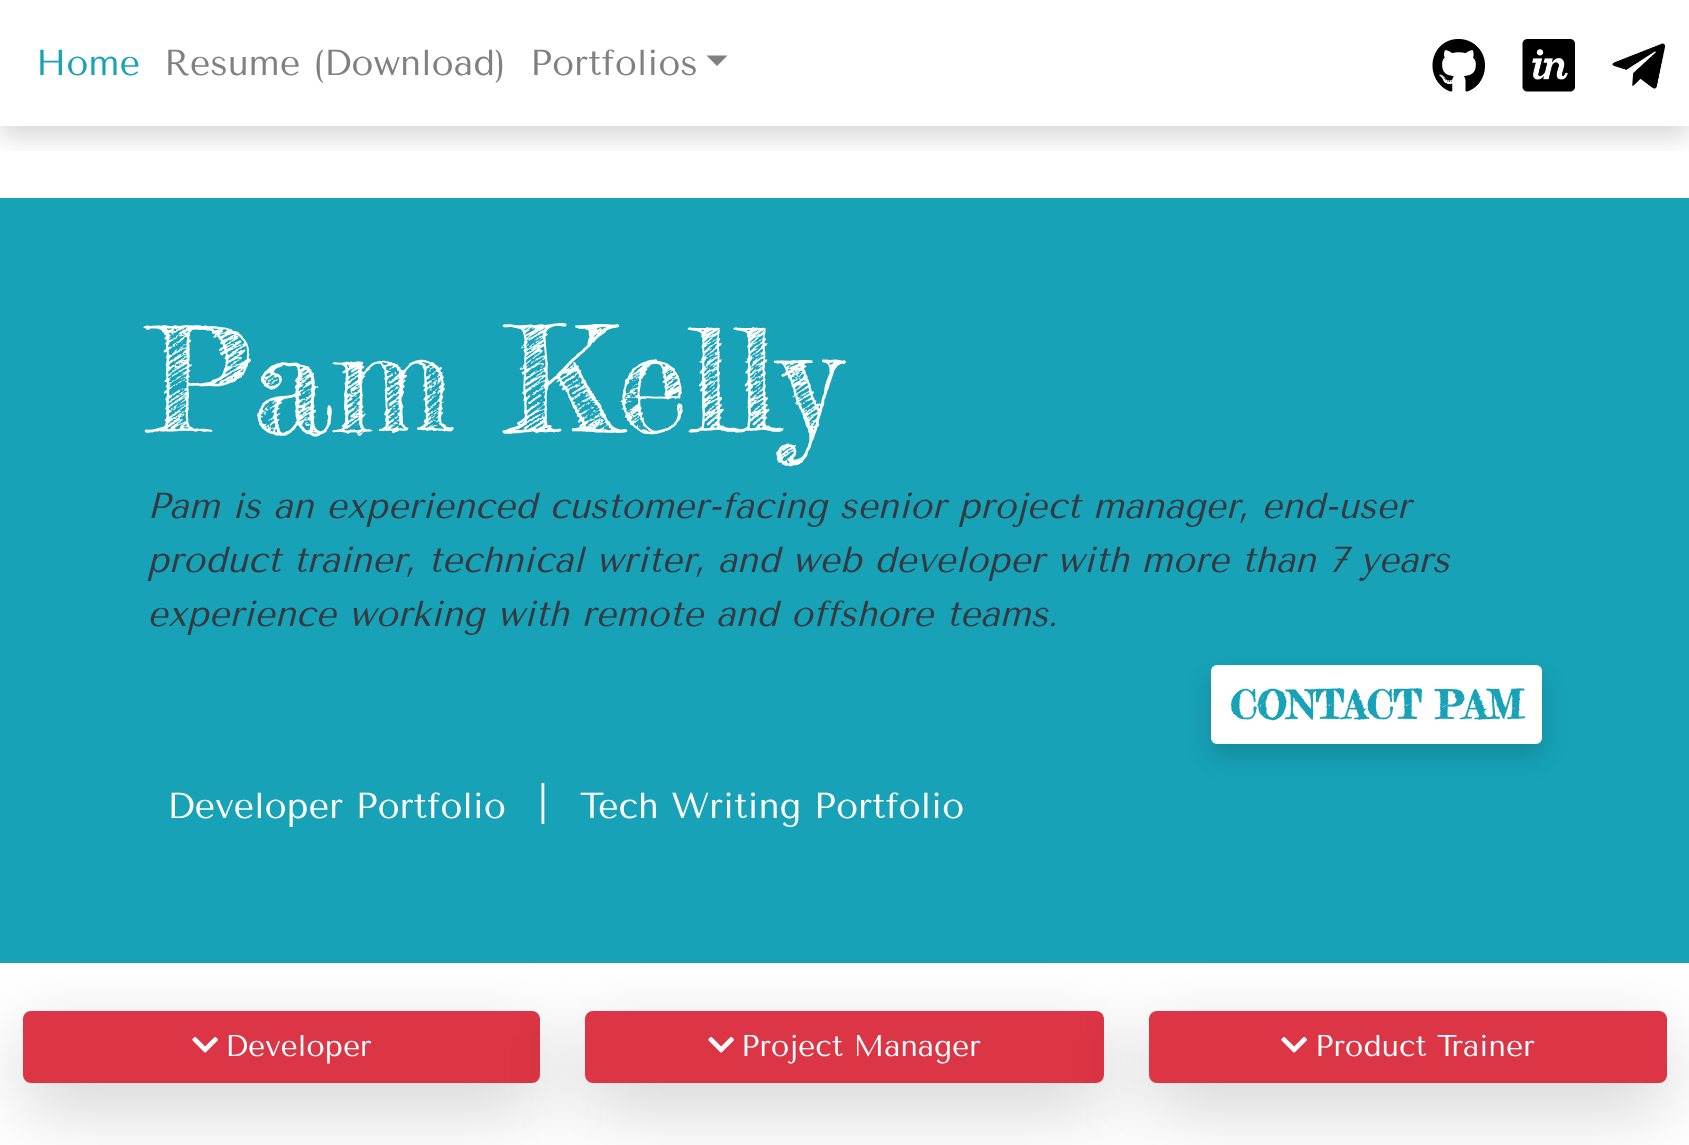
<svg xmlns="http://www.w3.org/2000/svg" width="1689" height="1145">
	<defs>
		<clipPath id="clip1"><rect x="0" y="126" width="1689" height="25" /></clipPath>
	</defs>
	<rect width="100%" height="100%" fill="#FFFFFF" />
	<g clip-path="url(#clip1)">
		<rect x="0" y="12" width="1689" height="126" fill="#000000" fill-opacity="0.15" filter="blur(12px)" />
	</g>
	<text x="36" y="75" font-family="Tenor Sans" font-size="36" fill="#17A2B8">Home</text>
	<g font-family="Tenor Sans" font-size="36" fill="#808080">
		<text x="164" y="75">Resume (Download)</text>
		<text x="530" y="75">Portfolios</text>
	</g>
	<path d="M706.5 55.5H727.5L717 66Z" fill="#808080" />
	<image x="1432" y="39" width="53" height="53" href="assets/img1.png" />
	<image x="1522" y="39" width="53" height="53" href="assets/img2.png" />
	<image x="1612" y="43" width="53" height="46" href="assets/img3.png" />
	<rect x="0" y="198" width="1689" height="765" fill="#17A2B8" />
	<text x="147" y="432" font-family="Fredericka the Great" font-size="144" fill="#FFFFFF">Pam Kelly</text>
	<g font-family="Tenor Sans" font-size="36" font-style="italic" fill="#343A40">
		<text x="147" y="518">Pam is an experienced customer-facing senior project manager, end-user</text>
		<text x="147" y="572">product trainer, technical writer, and web developer with more than 7 years</text>
		<text x="147" y="626">experience working with remote and offshore teams.</text>
	</g>
	<rect x="1211" y="677" width="331" height="79" rx="6" fill="#000000" fill-opacity="0.15" filter="blur(12px)" />
	<rect x="1211" y="665" width="331" height="79" rx="6" fill="#FFFFFF" />
	<text x="1230" y="719" font-family="Fredericka the Great" font-size="39" font-weight="700" fill="#17A2B8">CONTACT PAM</text>
	<g font-family="Tenor Sans" font-size="36" fill="#FFFFFF">
		<text x="167" y="818">Developer Portfolio</text>
		<text x="538" y="815">|</text>
		<text x="580" y="818">Tech Writing Portfolio</text>
	</g>
	<rect x="23" y="1035" width="517" height="72" rx="8" fill="#000000" fill-opacity="0.18" filter="blur(36px)" />
	<rect x="24" y="1012" width="515" height="70" rx="7" fill="#DC3545" stroke="#DC3545" stroke-width="2" />
	<image x="192" y="1037" width="26" height="16" href="assets/img4.png" />
	<text x="225" y="1056" font-family="Tenor Sans" font-size="30" fill="#FFFFFF">Developer</text>
	<rect x="585" y="1035" width="519" height="72" rx="8" fill="#000000" fill-opacity="0.18" filter="blur(36px)" />
	<rect x="586" y="1012" width="517" height="70" rx="7" fill="#DC3545" stroke="#DC3545" stroke-width="2" />
	<image x="708" y="1037" width="26" height="16" href="assets/img4.png" />
	<text x="741" y="1056" font-family="Tenor Sans" font-size="30" fill="#FFFFFF">Project Manager</text>
	<rect x="1149" y="1035" width="518" height="72" rx="8" fill="#000000" fill-opacity="0.18" filter="blur(36px)" />
	<rect x="1150" y="1012" width="516" height="70" rx="7" fill="#DC3545" stroke="#DC3545" stroke-width="2" />
	<image x="1281" y="1037" width="26" height="16" href="assets/img4.png" />
	<text x="1315" y="1056" font-family="Tenor Sans" font-size="30" fill="#FFFFFF">Product Trainer</text>
</svg>
